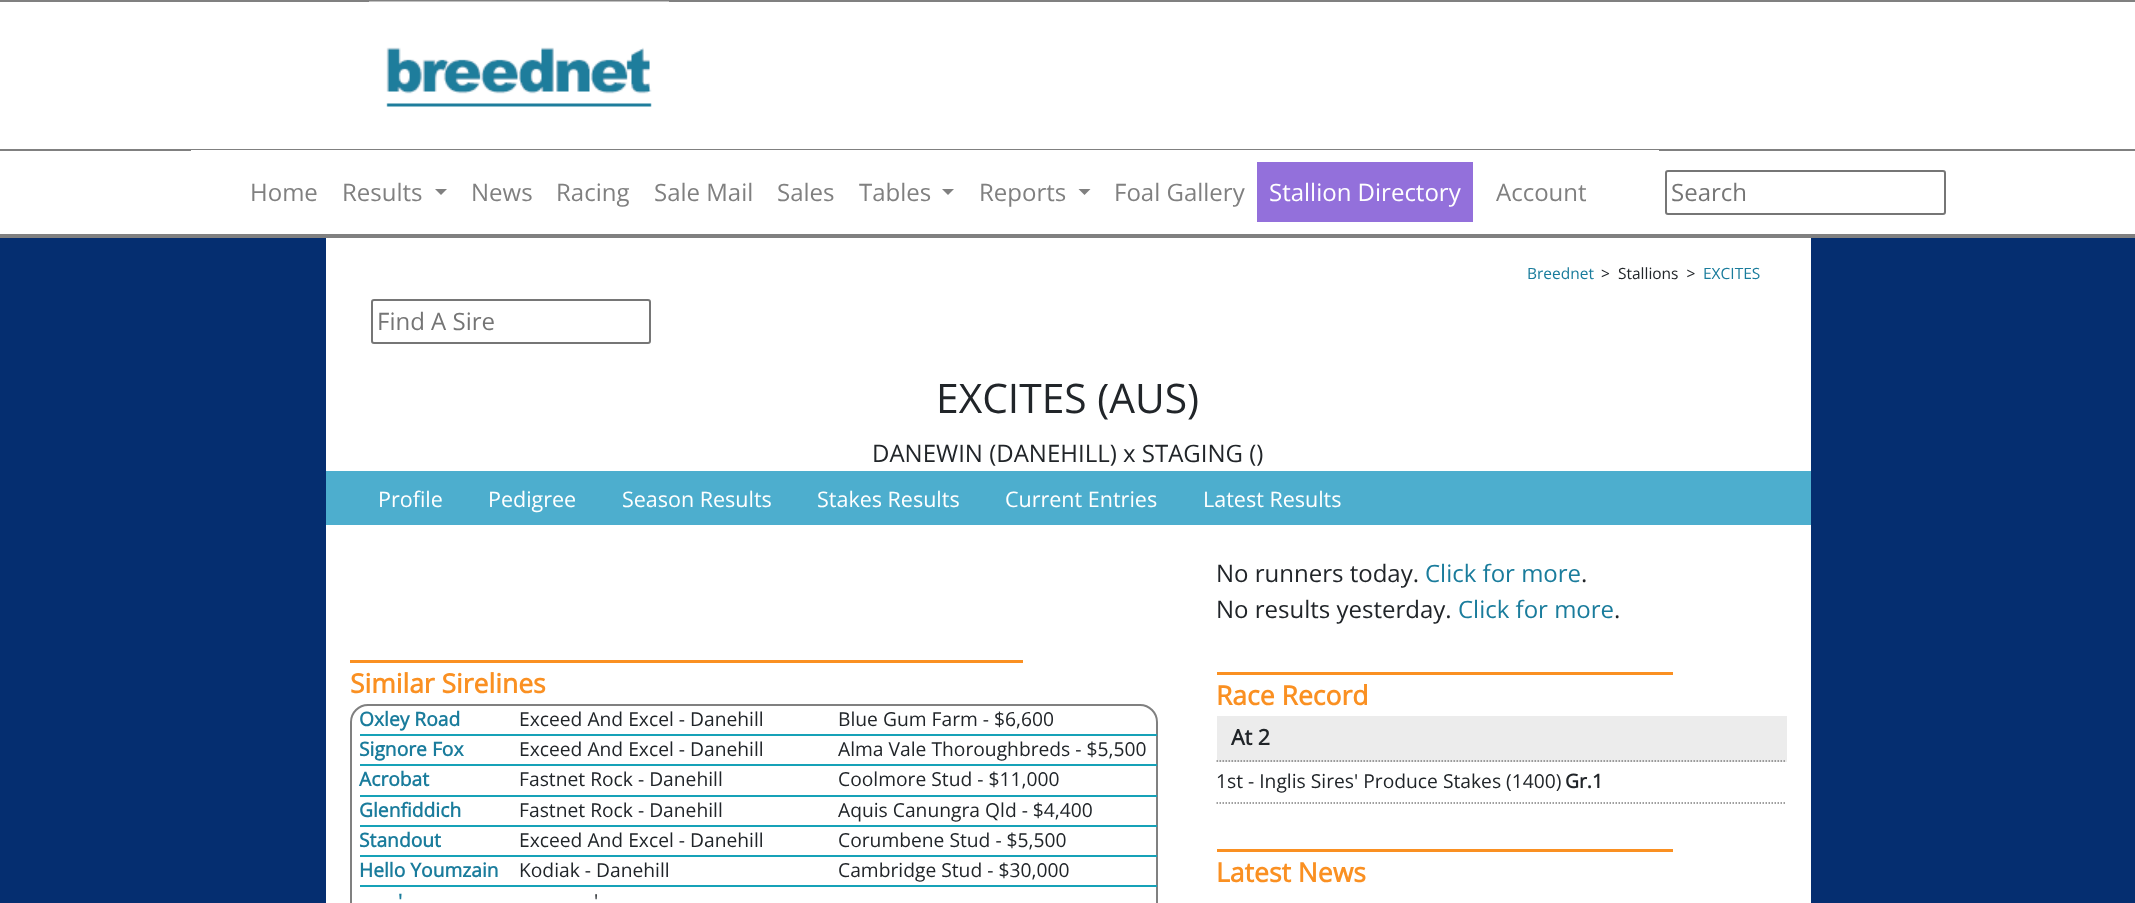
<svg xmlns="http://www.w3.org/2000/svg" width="2135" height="903">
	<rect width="100%" height="100%" fill="#052E70" />
	<rect x="0" y="2" width="2135" height="232" fill="#FFFFFF" />
	<rect x="0" y="0" width="2135" height="2" fill="#808080" />
	<rect x="0" y="234" width="2135" height="4" fill="#808080" />
	<image x="369" y="1" width="300" height="106" href="assets/img1.png" />
	<rect x="0" y="149" width="2135" height="2" fill="#808080" />
	<rect x="191" y="150" width="1468" height="1" fill="#FFFFFF" />
	<g font-family="Open Sans" font-size="24" fill="#808080">
		<text x="250" y="201">Home</text>
		<text x="342" y="201">Results</text>
	</g>
	<path d="M435 189H447L441 195Z" fill="#808080" />
	<g font-family="Open Sans" font-size="24" fill="#808080">
		<text x="471" y="201">News</text>
		<text x="556" y="201">Racing</text>
		<text x="654" y="201">Sale Mail</text>
		<text x="777" y="201">Sales</text>
		<text x="859" y="201">Tables</text>
	</g>
	<path d="M942 189H954L948 195Z" fill="#808080" />
	<text x="979" y="201" font-family="Open Sans" font-size="24" fill="#808080">Reports</text>
	<path d="M1078.5 189H1090.5L1084.5 195Z" fill="#808080" />
	<text x="1114" y="201" font-family="Open Sans" font-size="24" fill="#808080">Foal Gallery</text>
	<rect x="1257" y="162" width="216" height="60" fill="#9370DB" />
	<text x="1269" y="201" font-family="Open Sans" font-size="24" fill="#FFFFFF">Stallion Directory</text>
	<text x="1496" y="201" font-family="Open Sans" font-size="24" fill="#808080">Account</text>
	<rect x="1666" y="171" width="279" height="43" rx="2" fill="none" stroke="#767676" stroke-width="2" />
	<text x="1671" y="201" font-family="Open Sans" font-size="24" fill="#757575">Search</text>
	<rect x="326" y="238" width="1485" height="665" fill="#FFFFFF" />
	<text x="1527" y="279" font-family="Open Sans" font-size="15.5" fill="#1A7C9C">Breednet</text>
	<text x="1601" y="279" font-family="Open Sans" font-size="15.5" fill="#212529" xml:space="preserve">&gt;  Stallions  &gt;</text>
	<text x="1703" y="279" font-family="Open Sans" font-size="15.5" fill="#1A7C9C">EXCITES</text>
	<rect x="372" y="300" width="278" height="43" rx="2" fill="none" stroke="#767676" stroke-width="2" />
	<text x="377" y="330" font-family="Open Sans" font-size="24" fill="#757575">Find A Sire</text>
	<text x="936" y="413" font-family="Open Sans" font-size="40.75" fill="#212529">EXCITES (AUS)</text>
	<text x="872" y="462" font-family="Open Sans" font-size="24" fill="#212529">DANEWIN (DANEHILL) x STAGING ()</text>
	<rect x="326" y="471" width="1485" height="54" fill="#4DAECE" />
	<g font-family="Open Sans" font-size="21.5" fill="#FFFFFF">
		<text x="378" y="507">Profile</text>
		<text x="488" y="507">Pedigree</text>
		<text x="622" y="507">Season Results</text>
		<text x="817" y="507">Stakes Results</text>
		<text x="1005" y="507">Current Entries</text>
		<text x="1203" y="507">Latest Results</text>
	</g>
	<rect x="350" y="660" width="673" height="3" fill="#FA9022" />
	<text x="350" y="693" font-family="Open Sans" font-size="26.5" font-weight="700" fill="#FA9022">Similar Sirelines</text>
	<rect x="351" y="705" width="806" height="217" rx="17" fill="none" stroke="#808080" stroke-width="2" />
	<rect x="360" y="734" width="797" height="2" fill="#17A2B8" />
	<text x="359" y="726" font-family="Open Sans" font-size="19.25" font-weight="700" fill="#1A7C9C">Oxley Road</text>
	<g font-family="Open Sans" font-size="19.25" fill="#212529">
		<text x="519" y="726">Exceed And Excel - Danehill</text>
		<text x="838" y="726">Blue Gum Farm - $6,600</text>
	</g>
	<rect x="360" y="764" width="797" height="2" fill="#17A2B8" />
	<text x="359" y="756" font-family="Open Sans" font-size="19.25" font-weight="700" fill="#1A7C9C">Signore Fox</text>
	<g font-family="Open Sans" font-size="19.25" fill="#212529">
		<text x="519" y="756">Exceed And Excel - Danehill</text>
		<text x="838" y="756">Alma Vale Thoroughbreds - $5,500</text>
	</g>
	<rect x="360" y="795" width="797" height="2" fill="#17A2B8" />
	<text x="359" y="786" font-family="Open Sans" font-size="19.25" font-weight="700" fill="#1A7C9C">Acrobat</text>
	<g font-family="Open Sans" font-size="19.25" fill="#212529">
		<text x="519" y="786">Fastnet Rock - Danehill</text>
		<text x="838" y="786">Coolmore Stud - $11,000</text>
	</g>
	<rect x="360" y="825" width="797" height="2" fill="#17A2B8" />
	<text x="359" y="817" font-family="Open Sans" font-size="19.25" font-weight="700" fill="#1A7C9C">Glenfiddich</text>
	<g font-family="Open Sans" font-size="19.25" fill="#212529">
		<text x="519" y="817">Fastnet Rock - Danehill</text>
		<text x="838" y="817">Aquis Canungra Qld - $4,400</text>
	</g>
	<rect x="360" y="855" width="797" height="2" fill="#17A2B8" />
	<text x="359" y="847" font-family="Open Sans" font-size="19.25" font-weight="700" fill="#1A7C9C">Standout</text>
	<g font-family="Open Sans" font-size="19.25" fill="#212529">
		<text x="519" y="847">Exceed And Excel - Danehill</text>
		<text x="838" y="847">Corumbene Stud - $5,500</text>
	</g>
	<rect x="360" y="885" width="797" height="2" fill="#17A2B8" />
	<text x="359" y="877" font-family="Open Sans" font-size="19.25" font-weight="700" fill="#1A7C9C">Hello Youmzain</text>
	<g font-family="Open Sans" font-size="19.25" fill="#212529">
		<text x="519" y="877">Kodiak - Danehill</text>
		<text x="838" y="877">Cambridge Stud - $30,000</text>
	</g>
	<text x="398" y="908" font-family="Open Sans" font-size="19.25" font-weight="700" fill="#1A7C9C">'</text>
	<text x="594" y="908" font-family="Open Sans" font-size="19.25" fill="#212529">'</text>
	<text x="1216" y="582" font-family="Open Sans" font-size="24" fill="#212529">No runners today.</text>
	<text x="1425" y="582" font-family="Open Sans" font-size="24" fill="#1A7C9C">Click for more</text>
	<g font-family="Open Sans" font-size="24" fill="#212529">
		<text x="1581" y="582">.</text>
		<text x="1216" y="618">No results yesterday.</text>
	</g>
	<text x="1458" y="618" font-family="Open Sans" font-size="24" fill="#1A7C9C">Click for more</text>
	<text x="1614" y="618" font-family="Open Sans" font-size="24" fill="#212529">.</text>
	<rect x="1217" y="672" width="456" height="3" fill="#FA9022" />
	<text x="1216" y="705" font-family="Open Sans" font-size="26.5" font-weight="700" fill="#FA9022">Race Record</text>
	<rect x="1217" y="716" width="570" height="46" fill="#ECECEC" />
	<path d="M1216.5 761H1786.5" fill="none" stroke="#808080" stroke-width="1.5" stroke-dasharray="1.5 1.5" />
	<text x="1231" y="745" font-family="Open Sans" font-size="21.5" font-weight="700" fill="#212529">At 2</text>
	<path d="M1216.5 803H1786.5" fill="none" stroke="#808080" stroke-width="1.5" stroke-dasharray="1.5 1.5" />
	<text x="1216" y="788" font-family="Open Sans" font-size="19.25" fill="#212529">1st - Inglis Sires' Produce Stakes (1400)</text>
	<text x="1565" y="788" font-family="Open Sans" font-size="19.25" font-weight="700" fill="#212529">Gr.1</text>
	<rect x="1217" y="849" width="456" height="3" fill="#FA9022" />
	<text x="1216" y="882" font-family="Open Sans" font-size="26.5" font-weight="700" fill="#FA9022">Latest News</text>
</svg>
